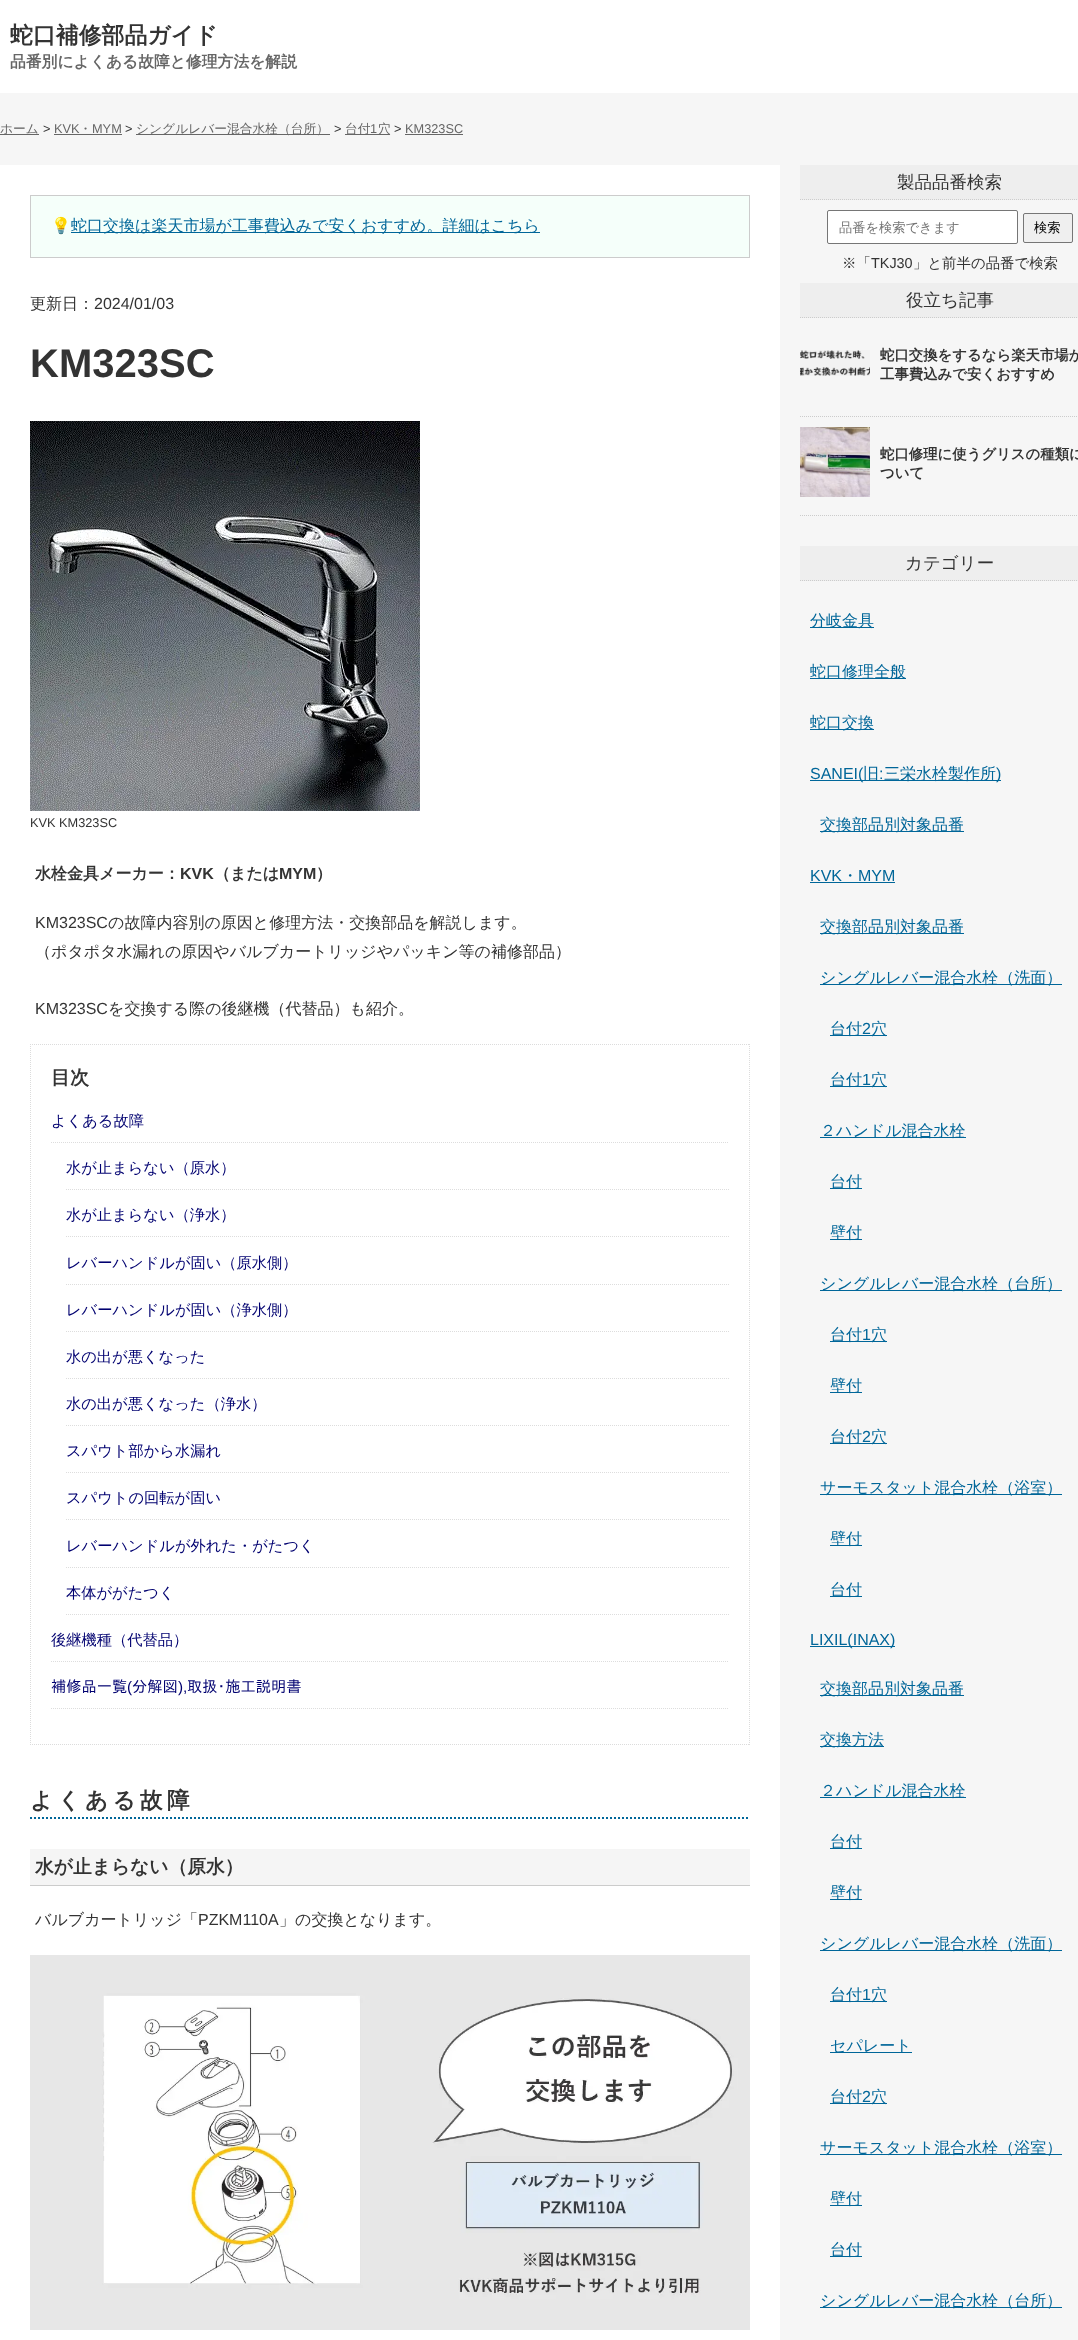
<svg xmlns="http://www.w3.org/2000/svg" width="1078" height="2340">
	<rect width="100%" height="100%" fill="#F6F6F6" />
	<rect x="0" y="0" width="1078" height="93" fill="#FFFFFF" />
	<text x="10" y="43" font-family="WenQuanYi Zen Hei" font-size="22.9" font-weight="700" fill="#333333">蛇口補修部品ガイド</text>
	<text x="10" y="67" font-family="WenQuanYi Zen Hei" font-size="15.8" font-weight="700" fill="#666666">品番別によくある故障と修理方法を解説</text>
	<rect x="0" y="134" width="39" height="1" fill="#666666" />
	<text x="0" y="133" font-family="WenQuanYi Zen Hei" font-size="12.75" font-weight="500" fill="#666666">ホーム</text>
	<text x="43" y="133" font-family="Liberation Sans" font-size="12.75" fill="#333333">&gt;</text>
	<text x="54" y="133" font-family="Liberation Sans" font-size="12.75" fill="#666666">KVK</text>
	<rect x="54" y="134" width="68" height="1" fill="#666666" />
	<text x="79" y="133" font-family="WenQuanYi Zen Hei" font-size="12.75" font-weight="500" fill="#666666">・</text>
	<text x="92" y="133" font-family="Liberation Sans" font-size="12.75" fill="#666666">MYM</text>
	<text x="125" y="133" font-family="Liberation Sans" font-size="12.75" fill="#333333">&gt;</text>
	<rect x="136" y="134" width="194" height="1" fill="#666666" />
	<text x="136" y="133" font-family="WenQuanYi Zen Hei" font-size="12.75" font-weight="500" fill="#666666">シングルレバー混合水栓（台所）</text>
	<text x="334" y="133" font-family="Liberation Sans" font-size="12.75" fill="#333333">&gt;</text>
	<rect x="345" y="134" width="45" height="1" fill="#666666" />
	<text x="345" y="133" font-family="WenQuanYi Zen Hei" font-size="12.75" font-weight="500" fill="#666666">台付</text>
	<text x="370" y="133" font-family="Liberation Sans" font-size="12.75" fill="#666666">1</text>
	<text x="378" y="133" font-family="WenQuanYi Zen Hei" font-size="12.75" font-weight="500" fill="#666666">穴</text>
	<text x="394" y="133" font-family="Liberation Sans" font-size="12.75" fill="#333333">&gt;</text>
	<text x="405" y="133" font-family="Liberation Sans" font-size="12.75" fill="#666666">KM323SC</text>
	<rect x="405" y="134" width="58" height="1" fill="#666666" />
	<rect x="0" y="165" width="780" height="2175" fill="#FFFFFF" />
	<rect x="30.5" y="195.5" width="719" height="62" fill="#F5FFFA" stroke="#CCCCCC" />
	<text x="51" y="231" font-family="Noto Color Emoji" font-size="16" fill="#333333">💡</text>
	<rect x="71" y="232" width="469" height="1" fill="#006699" />
	<text x="71" y="231" font-family="WenQuanYi Zen Hei" font-size="16" font-weight="500" fill="#006699">蛇口交換は楽天市場が工事費込みで安くおすすめ。詳細はこちら</text>
	<text x="30" y="309" font-family="WenQuanYi Zen Hei" font-size="16" font-weight="500" fill="#333333">更新日：</text>
	<text x="94" y="309" font-family="Liberation Sans" font-size="16" fill="#333333">2024/01/03</text>
	<text x="30" y="377" font-family="Liberation Sans" font-size="40" font-weight="700" fill="#333333">KM323SC</text>
	<image x="30" y="421" width="390" height="390" href="assets/img1.png" />
	<text x="30" y="827" font-family="Liberation Sans" font-size="12.75" fill="#333333">KVK KM323SC</text>
	<text x="35" y="879" font-family="WenQuanYi Zen Hei" font-size="16" font-weight="700" fill="#333333">水栓金具メーカー：</text>
	<text x="180" y="879" font-family="Liberation Sans" font-size="16" font-weight="700" fill="#333333">KVK</text>
	<text x="214" y="879" font-family="WenQuanYi Zen Hei" font-size="16" font-weight="700" fill="#333333">（または</text>
	<text x="279" y="879" font-family="Liberation Sans" font-size="16" font-weight="700" fill="#333333">MYM</text>
	<text x="316" y="879" font-family="WenQuanYi Zen Hei" font-size="16" font-weight="700" fill="#333333">）</text>
	<text x="35" y="928" font-family="Liberation Sans" font-size="16" fill="#333333">KM323SC</text>
	<g font-family="WenQuanYi Zen Hei" font-size="16" font-weight="500" fill="#333333">
		<text x="108" y="928">の故障内容別の原因と修理方法・交換部品を解説します。</text>
		<text x="35" y="957">（ポタポタ水漏れの原因やバルブカートリッジやパッキン等の補修部品）</text>
	</g>
	<text x="35" y="1014" font-family="Liberation Sans" font-size="16" fill="#333333">KM323SC</text>
	<text x="108" y="1014" font-family="WenQuanYi Zen Hei" font-size="16" font-weight="500" fill="#333333">を交換する際の後継機（代替品）も紹介。</text>
	<path d="M30 1044.5H750" fill="none" stroke="#DCDCDC" stroke-dasharray="1 1" />
	<path d="M749.5 1044V1745" fill="none" stroke="#DCDCDC" stroke-dasharray="1 1" />
	<path d="M30 1744.5H750" fill="none" stroke="#DCDCDC" stroke-dasharray="1 1" />
	<path d="M30.5 1044V1745" fill="none" stroke="#DCDCDC" stroke-dasharray="1 1" />
	<text x="51" y="1084" font-family="WenQuanYi Zen Hei" font-size="19" font-weight="700" fill="#333333">目次</text>
	<path d="M51 1142.5H729" fill="none" stroke="#DDDDDD" stroke-dasharray="1 1" />
	<text x="51" y="1126" font-family="WenQuanYi Zen Hei" font-size="15.25" font-weight="500" fill="#000070">よくある故障</text>
	<path d="M66 1189.5H729" fill="none" stroke="#DDDDDD" stroke-dasharray="1 1" />
	<text x="66" y="1173" font-family="WenQuanYi Zen Hei" font-size="15.25" font-weight="500" fill="#000070">水が止まらない（原水）</text>
	<path d="M66 1236.5H729" fill="none" stroke="#DDDDDD" stroke-dasharray="1 1" />
	<text x="66" y="1220" font-family="WenQuanYi Zen Hei" font-size="15.25" font-weight="500" fill="#000070">水が止まらない（浄水）</text>
	<path d="M66 1284.5H729" fill="none" stroke="#DDDDDD" stroke-dasharray="1 1" />
	<text x="66" y="1268" font-family="WenQuanYi Zen Hei" font-size="15.25" font-weight="500" fill="#000070">レバーハンドルが固い（原水側）</text>
	<path d="M66 1331.5H729" fill="none" stroke="#DDDDDD" stroke-dasharray="1 1" />
	<text x="66" y="1315" font-family="WenQuanYi Zen Hei" font-size="15.25" font-weight="500" fill="#000070">レバーハンドルが固い（浄水側）</text>
	<path d="M66 1378.5H729" fill="none" stroke="#DDDDDD" stroke-dasharray="1 1" />
	<text x="66" y="1362" font-family="WenQuanYi Zen Hei" font-size="15.25" font-weight="500" fill="#000070">水の出が悪くなった</text>
	<path d="M66 1425.5H729" fill="none" stroke="#DDDDDD" stroke-dasharray="1 1" />
	<text x="66" y="1409" font-family="WenQuanYi Zen Hei" font-size="15.25" font-weight="500" fill="#000070">水の出が悪くなった（浄水）</text>
	<path d="M66 1472.5H729" fill="none" stroke="#DDDDDD" stroke-dasharray="1 1" />
	<text x="66" y="1456" font-family="WenQuanYi Zen Hei" font-size="15.25" font-weight="500" fill="#000070">スパウト部から水漏れ</text>
	<path d="M66 1519.5H729" fill="none" stroke="#DDDDDD" stroke-dasharray="1 1" />
	<text x="66" y="1503" font-family="WenQuanYi Zen Hei" font-size="15.25" font-weight="500" fill="#000070">スパウトの回転が固い</text>
	<path d="M66 1567.5H729" fill="none" stroke="#DDDDDD" stroke-dasharray="1 1" />
	<text x="66" y="1551" font-family="WenQuanYi Zen Hei" font-size="15.25" font-weight="500" fill="#000070">レバーハンドルが外れた・がたつく</text>
	<path d="M66 1614.5H729" fill="none" stroke="#DDDDDD" stroke-dasharray="1 1" />
	<text x="66" y="1598" font-family="WenQuanYi Zen Hei" font-size="15.25" font-weight="500" fill="#000070">本体ががたつく</text>
	<path d="M51 1661.5H729" fill="none" stroke="#DDDDDD" stroke-dasharray="1 1" />
	<text x="51" y="1645" font-family="WenQuanYi Zen Hei" font-size="15.25" font-weight="500" fill="#000070">後継機種（代替品）</text>
	<path d="M51 1708.5H729" fill="none" stroke="#DDDDDD" stroke-dasharray="1 1" />
	<text x="51" y="1692" font-family="IPAPGothic" font-size="15.25" fill="#000070">補修品一覧</text>
	<text x="127" y="1692" font-family="Liberation Sans" font-size="15.25" fill="#000070">(</text>
	<text x="132" y="1692" font-family="IPAPGothic" font-size="15.25" fill="#000070">分解図</text>
	<text x="178" y="1692" font-family="Liberation Sans" font-size="15.25" fill="#000070">),</text>
	<text x="187" y="1692" font-family="IPAPGothic" font-size="15.25" fill="#000070">取扱･施工説明書</text>
	<path d="M30 1818H750" fill="none" stroke="#006699" stroke-width="2" stroke-dasharray="2 2" />
	<text x="30" y="1808" font-family="WenQuanYi Zen Hei" font-size="22.5" font-weight="700" letter-spacing="4.5" fill="#333333">よくある故障</text>
	<rect x="30" y="1849" width="720" height="36" fill="#F5F5F5" />
	<rect x="30" y="1885" width="720" height="1" fill="#CCCCCC" />
	<text x="35" y="1873" font-family="WenQuanYi Zen Hei" font-size="18.75" font-weight="700" fill="#333333">水が止まらない（原水）</text>
	<text x="35" y="1925" font-family="WenQuanYi Zen Hei" font-size="16" font-weight="500" fill="#333333">バルブカートリッジ「</text>
	<text x="198" y="1925" font-family="Liberation Sans" font-size="16" fill="#333333">PZKM110A</text>
	<text x="279" y="1925" font-family="WenQuanYi Zen Hei" font-size="16" font-weight="500" fill="#333333">」の交換となります。</text>
	<image x="30" y="1955" width="720" height="375" href="assets/img2.png" />
	<rect x="800" y="165" width="278" height="35" fill="#EEEEEE" />
	<path d="M800 199.5H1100" fill="none" stroke="#CCCCCC" stroke-dasharray="1 1" />
	<text x="897" y="188" font-family="WenQuanYi Zen Hei" font-size="17.5" font-weight="500" fill="#333333">製品品番検索</text>
	<rect x="827.5" y="210.5" width="190" height="33" rx="1.5" fill="#FFFFFF" stroke="#767676" />
	<text x="839" y="232" font-family="WenQuanYi Zen Hei" font-size="13.25" font-weight="500" fill="#757575">品番を検索できます</text>
	<rect x="1023.5" y="213.5" width="49" height="29" rx="1.5" fill="#EFEFEF" stroke="#767676" />
	<text x="1034" y="232" font-family="WenQuanYi Zen Hei" font-size="13.25" font-weight="500" fill="#000000">検索</text>
	<text x="842" y="268" font-family="WenQuanYi Zen Hei" font-size="14.4" font-weight="500" fill="#333333">※「</text>
	<text x="871" y="268" font-family="Liberation Sans" font-size="14.4" fill="#333333">TKJ30</text>
	<text x="913" y="268" font-family="WenQuanYi Zen Hei" font-size="14.4" font-weight="500" fill="#333333">」と前半の品番で検索</text>
	<rect x="800" y="283" width="278" height="35" fill="#EEEEEE" />
	<path d="M800 317.5H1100" fill="none" stroke="#CCCCCC" stroke-dasharray="1 1" />
	<text x="906" y="306" font-family="WenQuanYi Zen Hei" font-size="17.5" font-weight="500" fill="#333333">役立ち記事</text>
	<path d="M800 416.5H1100" fill="none" stroke="#CCCCCC" stroke-dasharray="1 1" />
	<image x="800" y="350" width="70" height="26" href="assets/img3.png" />
	<g font-family="WenQuanYi Zen Hei" font-size="14.4" font-weight="700" fill="#333333">
		<text x="880" y="360">蛇口交換をするなら楽天市場が</text>
		<text x="880" y="379">工事費込みで安くおすすめ</text>
	</g>
	<path d="M800 515.5H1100" fill="none" stroke="#CCCCCC" stroke-dasharray="1 1" />
	<image x="800" y="427" width="70" height="70" href="assets/img4.png" />
	<g font-family="WenQuanYi Zen Hei" font-size="14.4" font-weight="700" fill="#333333">
		<text x="880" y="459">蛇口修理に使うグリスの種類に</text>
		<text x="880" y="478">ついて</text>
	</g>
	<rect x="800" y="546" width="278" height="35" fill="#EEEEEE" />
	<path d="M800 580.5H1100" fill="none" stroke="#CCCCCC" stroke-dasharray="1 1" />
	<text x="905" y="569" font-family="WenQuanYi Zen Hei" font-size="17.5" font-weight="500" fill="#333333">カテゴリー</text>
	<rect x="810" y="627" width="64" height="1" fill="#006699" />
	<text x="810" y="626" font-family="WenQuanYi Zen Hei" font-size="16" font-weight="500" fill="#006699">分岐金具</text>
	<rect x="810" y="678" width="96" height="1" fill="#006699" />
	<text x="810" y="677" font-family="WenQuanYi Zen Hei" font-size="16" font-weight="500" fill="#006699">蛇口修理全般</text>
	<rect x="810" y="729" width="64" height="1" fill="#006699" />
	<text x="810" y="728" font-family="WenQuanYi Zen Hei" font-size="16" font-weight="500" fill="#006699">蛇口交換</text>
	<rect x="810" y="780" width="191" height="1" fill="#006699" />
	<text x="810" y="779" font-family="Liberation Sans" font-size="16" fill="#006699">SANEI(</text>
	<text x="863" y="779" font-family="WenQuanYi Zen Hei" font-size="16" font-weight="500" fill="#006699">旧</text>
	<text x="879" y="779" font-family="Liberation Sans" font-size="16" fill="#006699">:</text>
	<text x="884" y="779" font-family="WenQuanYi Zen Hei" font-size="16" font-weight="500" fill="#006699">三栄水栓製作所</text>
	<text x="996" y="779" font-family="Liberation Sans" font-size="16" fill="#006699">)</text>
	<rect x="820" y="831" width="144" height="1" fill="#006699" />
	<text x="820" y="830" font-family="WenQuanYi Zen Hei" font-size="16" font-weight="500" fill="#006699">交換部品別対象品番</text>
	<text x="810" y="881" font-family="Liberation Sans" font-size="16" fill="#006699">KVK</text>
	<rect x="810" y="882" width="85" height="1" fill="#006699" />
	<text x="842" y="881" font-family="WenQuanYi Zen Hei" font-size="16" font-weight="500" fill="#006699">・</text>
	<text x="858" y="881" font-family="Liberation Sans" font-size="16" fill="#006699">MYM</text>
	<rect x="820" y="933" width="144" height="1" fill="#006699" />
	<text x="820" y="932" font-family="WenQuanYi Zen Hei" font-size="16" font-weight="500" fill="#006699">交換部品別対象品番</text>
	<rect x="820" y="984" width="242" height="1" fill="#006699" />
	<text x="820" y="983" font-family="WenQuanYi Zen Hei" font-size="16" font-weight="500" fill="#006699">シングルレバー混合水栓（洗面）</text>
	<rect x="830" y="1035" width="57" height="1" fill="#006699" />
	<text x="830" y="1034" font-family="WenQuanYi Zen Hei" font-size="16" font-weight="500" fill="#006699">台付</text>
	<text x="862" y="1034" font-family="Liberation Sans" font-size="16" fill="#006699">2</text>
	<text x="871" y="1034" font-family="WenQuanYi Zen Hei" font-size="16" font-weight="500" fill="#006699">穴</text>
	<rect x="830" y="1086" width="57" height="1" fill="#006699" />
	<text x="830" y="1085" font-family="WenQuanYi Zen Hei" font-size="16" font-weight="500" fill="#006699">台付</text>
	<text x="862" y="1085" font-family="Liberation Sans" font-size="16" fill="#006699">1</text>
	<text x="871" y="1085" font-family="WenQuanYi Zen Hei" font-size="16" font-weight="500" fill="#006699">穴</text>
	<rect x="820" y="1137" width="146" height="1" fill="#006699" />
	<text x="820" y="1136" font-family="WenQuanYi Zen Hei" font-size="16" font-weight="500" fill="#006699">２ハンドル混合水栓</text>
	<rect x="830" y="1188" width="32" height="1" fill="#006699" />
	<text x="830" y="1187" font-family="WenQuanYi Zen Hei" font-size="16" font-weight="500" fill="#006699">台付</text>
	<rect x="830" y="1239" width="32" height="1" fill="#006699" />
	<text x="830" y="1238" font-family="WenQuanYi Zen Hei" font-size="16" font-weight="500" fill="#006699">壁付</text>
	<rect x="820" y="1290" width="242" height="1" fill="#006699" />
	<text x="820" y="1289" font-family="WenQuanYi Zen Hei" font-size="16" font-weight="500" fill="#006699">シングルレバー混合水栓（台所）</text>
	<rect x="830" y="1341" width="57" height="1" fill="#006699" />
	<text x="830" y="1340" font-family="WenQuanYi Zen Hei" font-size="16" font-weight="500" fill="#006699">台付</text>
	<text x="862" y="1340" font-family="Liberation Sans" font-size="16" fill="#006699">1</text>
	<text x="871" y="1340" font-family="WenQuanYi Zen Hei" font-size="16" font-weight="500" fill="#006699">穴</text>
	<rect x="830" y="1392" width="32" height="1" fill="#006699" />
	<text x="830" y="1391" font-family="WenQuanYi Zen Hei" font-size="16" font-weight="500" fill="#006699">壁付</text>
	<rect x="830" y="1443" width="57" height="1" fill="#006699" />
	<text x="830" y="1442" font-family="WenQuanYi Zen Hei" font-size="16" font-weight="500" fill="#006699">台付</text>
	<text x="862" y="1442" font-family="Liberation Sans" font-size="16" fill="#006699">2</text>
	<text x="871" y="1442" font-family="WenQuanYi Zen Hei" font-size="16" font-weight="500" fill="#006699">穴</text>
	<rect x="820" y="1494" width="242" height="1" fill="#006699" />
	<text x="820" y="1493" font-family="WenQuanYi Zen Hei" font-size="16" font-weight="500" fill="#006699">サーモスタット混合水栓（浴室）</text>
	<rect x="830" y="1545" width="32" height="1" fill="#006699" />
	<text x="830" y="1544" font-family="WenQuanYi Zen Hei" font-size="16" font-weight="500" fill="#006699">壁付</text>
	<rect x="830" y="1596" width="32" height="1" fill="#006699" />
	<text x="830" y="1595" font-family="WenQuanYi Zen Hei" font-size="16" font-weight="500" fill="#006699">台付</text>
	<rect x="810" y="1646" width="85" height="1" fill="#006699" />
	<text x="810" y="1645" font-family="Liberation Sans" font-size="16" fill="#006699">LIXIL(INAX)</text>
	<rect x="820" y="1695" width="144" height="1" fill="#006699" />
	<text x="820" y="1694" font-family="WenQuanYi Zen Hei" font-size="16" font-weight="500" fill="#006699">交換部品別対象品番</text>
	<rect x="820" y="1746" width="64" height="1" fill="#006699" />
	<text x="820" y="1745" font-family="WenQuanYi Zen Hei" font-size="16" font-weight="500" fill="#006699">交換方法</text>
	<rect x="820" y="1797" width="146" height="1" fill="#006699" />
	<text x="820" y="1796" font-family="WenQuanYi Zen Hei" font-size="16" font-weight="500" fill="#006699">２ハンドル混合水栓</text>
	<rect x="830" y="1848" width="32" height="1" fill="#006699" />
	<text x="830" y="1847" font-family="WenQuanYi Zen Hei" font-size="16" font-weight="500" fill="#006699">台付</text>
	<rect x="830" y="1899" width="32" height="1" fill="#006699" />
	<text x="830" y="1898" font-family="WenQuanYi Zen Hei" font-size="16" font-weight="500" fill="#006699">壁付</text>
	<rect x="820" y="1950" width="242" height="1" fill="#006699" />
	<text x="820" y="1949" font-family="WenQuanYi Zen Hei" font-size="16" font-weight="500" fill="#006699">シングルレバー混合水栓（洗面）</text>
	<rect x="830" y="2001" width="57" height="1" fill="#006699" />
	<text x="830" y="2000" font-family="WenQuanYi Zen Hei" font-size="16" font-weight="500" fill="#006699">台付</text>
	<text x="862" y="2000" font-family="Liberation Sans" font-size="16" fill="#006699">1</text>
	<text x="871" y="2000" font-family="WenQuanYi Zen Hei" font-size="16" font-weight="500" fill="#006699">穴</text>
	<rect x="830" y="2052" width="82" height="1" fill="#006699" />
	<text x="830" y="2051" font-family="WenQuanYi Zen Hei" font-size="16" font-weight="500" fill="#006699">セパレート</text>
	<rect x="830" y="2103" width="57" height="1" fill="#006699" />
	<text x="830" y="2102" font-family="WenQuanYi Zen Hei" font-size="16" font-weight="500" fill="#006699">台付</text>
	<text x="862" y="2102" font-family="Liberation Sans" font-size="16" fill="#006699">2</text>
	<text x="871" y="2102" font-family="WenQuanYi Zen Hei" font-size="16" font-weight="500" fill="#006699">穴</text>
	<rect x="820" y="2154" width="242" height="1" fill="#006699" />
	<text x="820" y="2153" font-family="WenQuanYi Zen Hei" font-size="16" font-weight="500" fill="#006699">サーモスタット混合水栓（浴室）</text>
	<rect x="830" y="2205" width="32" height="1" fill="#006699" />
	<text x="830" y="2204" font-family="WenQuanYi Zen Hei" font-size="16" font-weight="500" fill="#006699">壁付</text>
	<rect x="830" y="2256" width="32" height="1" fill="#006699" />
	<text x="830" y="2255" font-family="WenQuanYi Zen Hei" font-size="16" font-weight="500" fill="#006699">台付</text>
	<rect x="820" y="2307" width="242" height="1" fill="#006699" />
	<text x="820" y="2306" font-family="WenQuanYi Zen Hei" font-size="16" font-weight="500" fill="#006699">シングルレバー混合水栓（台所）</text>
</svg>
